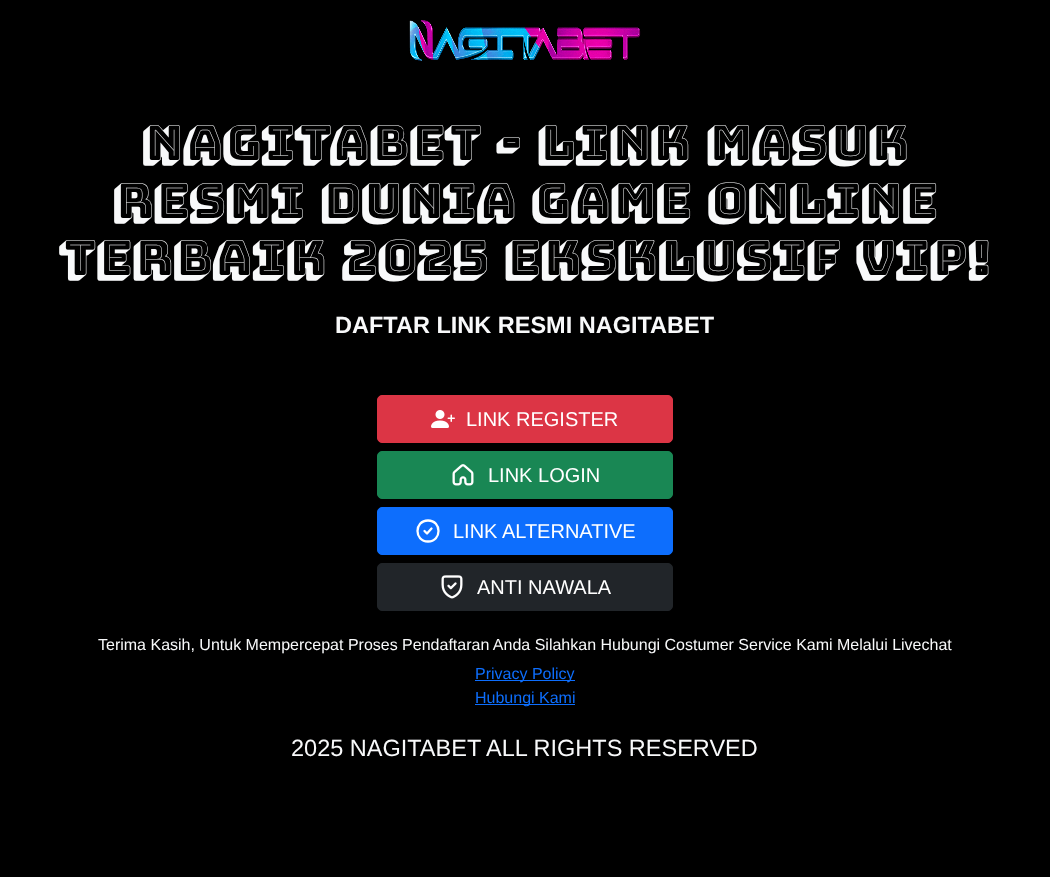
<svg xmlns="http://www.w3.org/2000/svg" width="1050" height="877">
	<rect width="100%" height="100%" fill="#000000" />
	<image x="409" y="20" width="232" height="41" href="assets/img1.png" />
	<g font-family="Bungee Shade" font-size="48" fill="#F8F9FA">
		<text x="141" y="160">Nagitabet - Link Masuk</text>
		<text x="112" y="218">Resmi Dunia Game Online</text>
		<text x="59" y="275">Terbaik 2025 Eksklusif VIP!</text>
	</g>
	<text x="335" y="333" font-family="Liberation Sans" font-size="23.5" font-weight="700" fill="#F8F9FA">DAFTAR LINK RESMI NAGITABET</text>
	<rect x="377.5" y="395.5" width="295" height="47" rx="4.5" fill="#DC3545" stroke="#DC3545" />
	<image x="431" y="410" width="24" height="18" href="assets/img2.png" />
	<text x="466" y="426" font-family="Liberation Sans" font-size="20" fill="#FFFFFF">LINK REGISTER</text>
	<rect x="377.5" y="451.5" width="295" height="47" rx="4.5" fill="#198754" stroke="#198754" />
	<image x="452" y="464" width="22" height="22" href="assets/img3.png" />
	<text x="488" y="482" font-family="Liberation Sans" font-size="20" fill="#FFFFFF">LINK LOGIN</text>
	<rect x="377.5" y="507.5" width="295" height="47" rx="4.5" fill="#0D6EFD" stroke="#0D6EFD" />
	<path d="M431.5 528.5L427 533.5L424.5 531M428 541.5C414 541.5 414 520.5 428 520.5C442 520.5 442 541.5 428 541.5" fill="none" stroke="#FFFFFF" stroke-width="2.3" stroke-linecap="round" stroke-linejoin="round" />
	<text x="453" y="538" font-family="Liberation Sans" font-size="20" fill="#FFFFFF">LINK ALTERNATIVE</text>
	<rect x="377.5" y="563.5" width="295" height="47" rx="4.5" fill="#212529" stroke="#212529" />
	<image x="441" y="575" width="22" height="24" href="assets/img4.png" />
	<text x="477" y="594" font-family="Liberation Sans" font-size="20" fill="#FFFFFF">ANTI NAWALA</text>
	<text x="98" y="650" font-family="Liberation Sans" font-size="16" fill="#F8F9FA">Terima Kasih, Untuk Mempercepat Proses Pendaftaran Anda Silahkan Hubungi Costumer Service Kami Melalui Livechat</text>
	<rect x="475" y="680" width="100" height="1" fill="#0D6EFD" />
	<text x="475" y="679" font-family="Liberation Sans" font-size="16" fill="#0D6EFD">Privacy Policy</text>
	<rect x="475" y="704" width="100" height="1" fill="#0D6EFD" />
	<text x="475" y="703" font-family="Liberation Sans" font-size="16" fill="#0D6EFD">Hubungi Kami</text>
	<text x="291" y="756" font-family="Liberation Sans" font-size="23.5" fill="#F8F9FA">2025 NAGITABET ALL RIGHTS RESERVED</text>
</svg>
